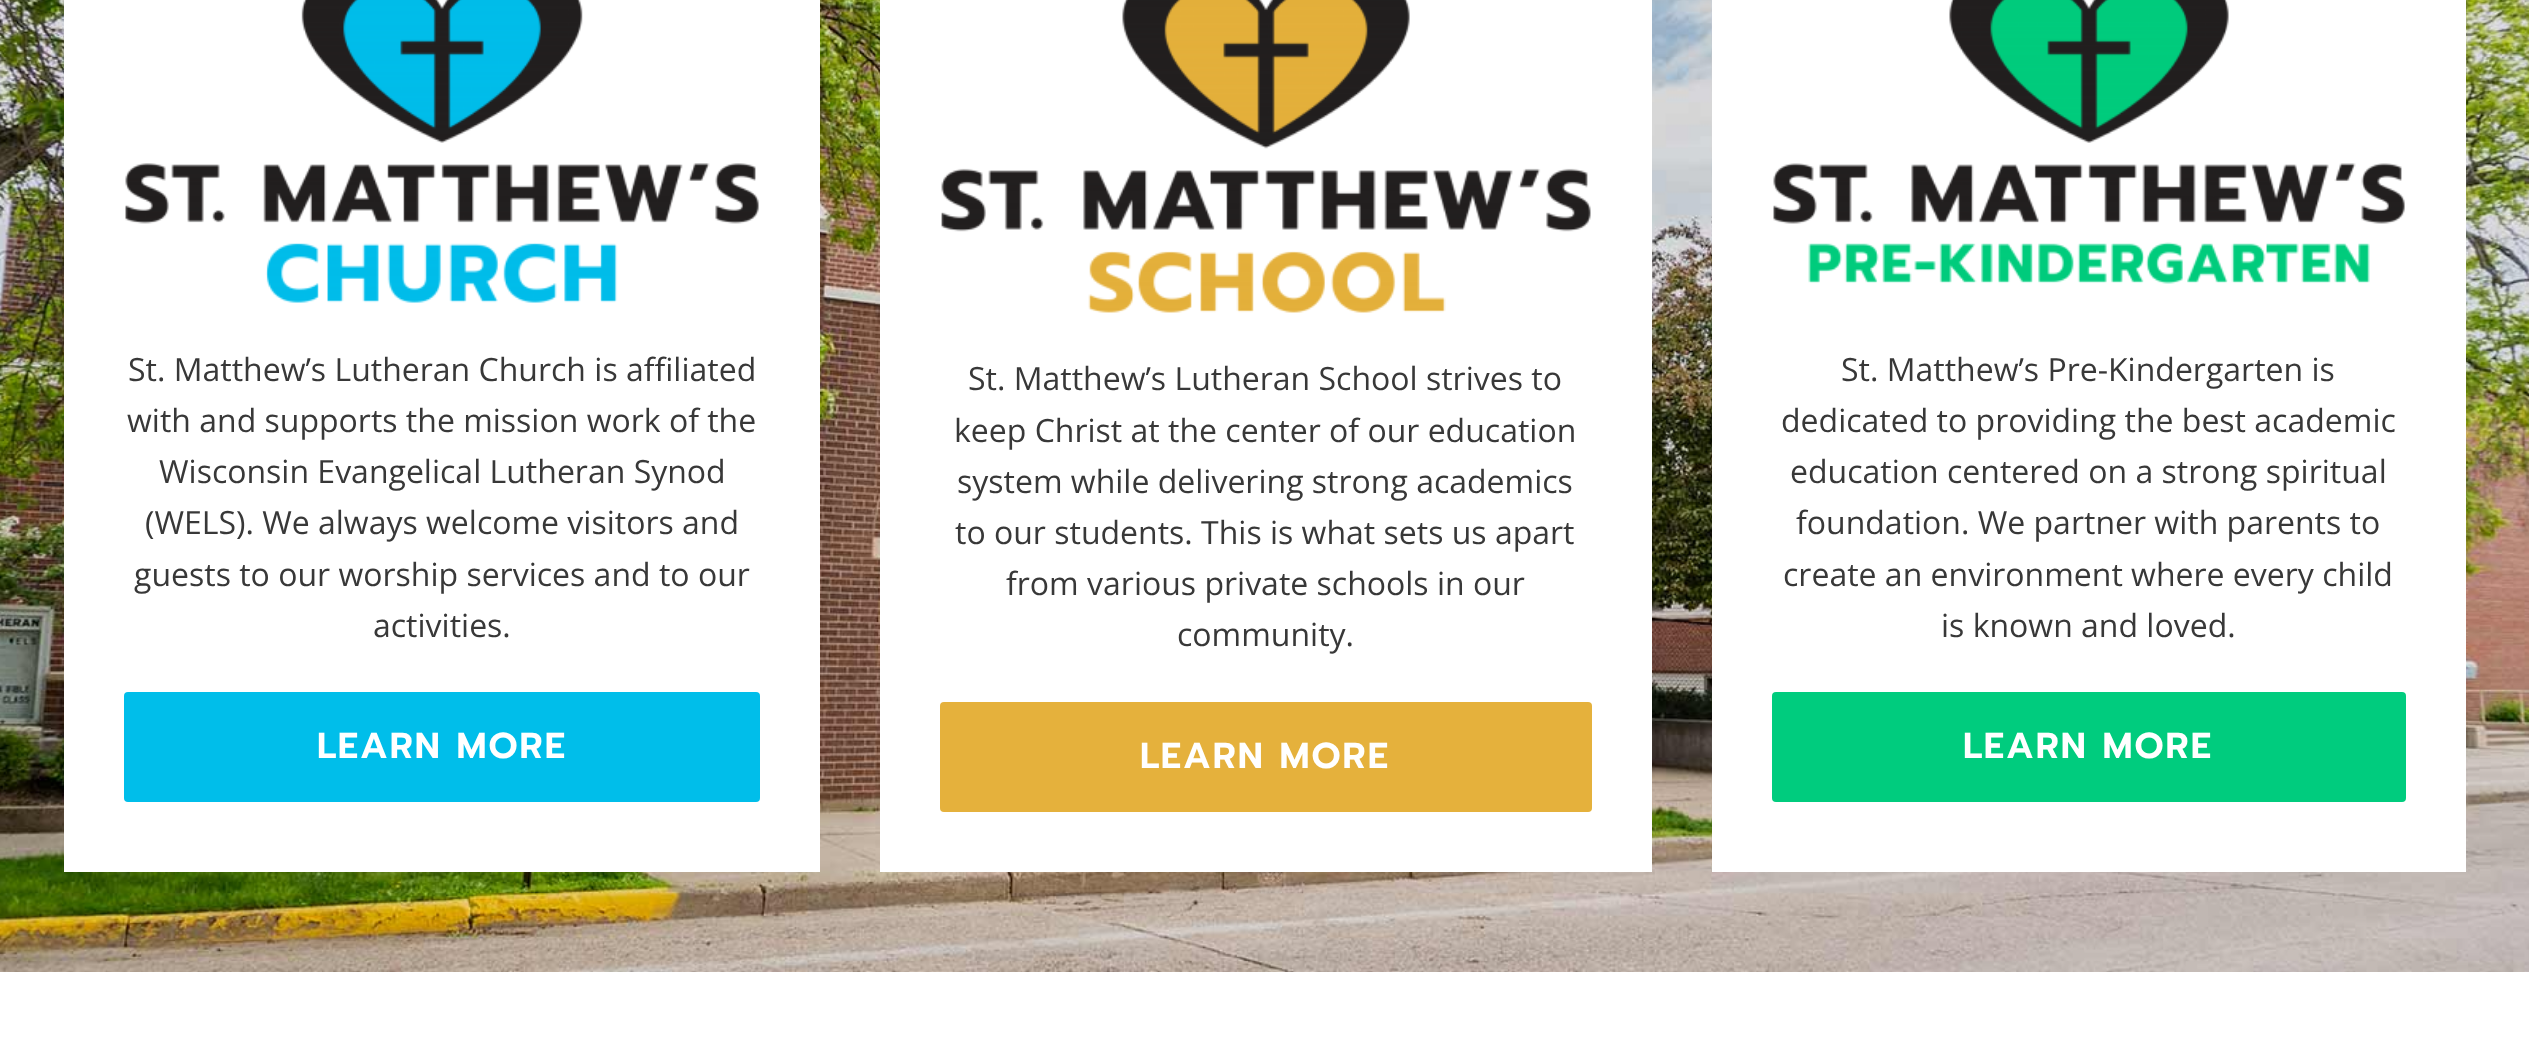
<svg xmlns="http://www.w3.org/2000/svg" width="2529" height="1047">
	<rect width="100%" height="100%" fill="#FFFFFF" />
	<image x="0" y="0" width="2529" height="972" href="assets/img1.png" />
	<rect x="64" y="0" width="756" height="872" fill="#FFFFFF" />
	<image x="125" y="0" width="634" height="303" href="assets/img2.png" />
	<g font-family="Open Sans" font-size="32" fill="#383838">
		<text x="128" y="381">St. Matthew’s Lutheran Church is affiliated</text>
		<text x="127" y="432">with and supports the mission work of the</text>
		<text x="159" y="483">Wisconsin Evangelical Lutheran Synod</text>
		<text x="145" y="534">(WELS). We always welcome visitors and</text>
		<text x="134" y="586">guests to our worship services and to our</text>
		<text x="373" y="637">activities.</text>
	</g>
	<rect x="124" y="692" width="636" height="110" rx="4" fill="#00BEEA" />
	<text x="317" y="758" font-family="Prompt" font-size="36" font-weight="600" letter-spacing="2" fill="#FFFFFF">LEARN MORE</text>
	<rect x="880" y="0" width="772" height="872" fill="#FFFFFF" />
	<image x="941" y="0" width="650" height="313" href="assets/img3.png" />
	<g font-family="Open Sans" font-size="32" fill="#383838">
		<text x="968" y="390">St. Matthew’s Lutheran School strives to</text>
		<text x="954" y="442">keep Christ at the center of our education</text>
		<text x="957" y="493">system while delivering strong academics</text>
		<text x="955" y="544">to our students. This is what sets us apart</text>
		<text x="1006" y="595">from various private schools in our</text>
		<text x="1177" y="646">community.</text>
	</g>
	<rect x="940" y="702" width="652" height="110" rx="4" fill="#E5B13C" />
	<text x="1140" y="768" font-family="Prompt" font-size="36" font-weight="600" letter-spacing="2" fill="#FFFFFF">LEARN MORE</text>
	<rect x="1712" y="0" width="754" height="872" fill="#FFFFFF" />
	<image x="1773" y="0" width="632" height="284" href="assets/img4.png" />
	<g font-family="Open Sans" font-size="32" fill="#383838">
		<text x="1841" y="381">St. Matthew’s Pre-Kindergarten is</text>
		<text x="1781" y="432">dedicated to providing the best academic</text>
		<text x="1790" y="483">education centered on a strong spiritual</text>
		<text x="1796" y="534">foundation. We partner with parents to</text>
		<text x="1783" y="586">create an environment where every child</text>
		<text x="1941" y="637">is known and loved.</text>
	</g>
	<rect x="1772" y="692" width="634" height="110" rx="4" fill="#00CC7E" />
	<text x="1963" y="758" font-family="Prompt" font-size="36" font-weight="600" letter-spacing="2" fill="#FFFFFF">LEARN MORE</text>
</svg>
